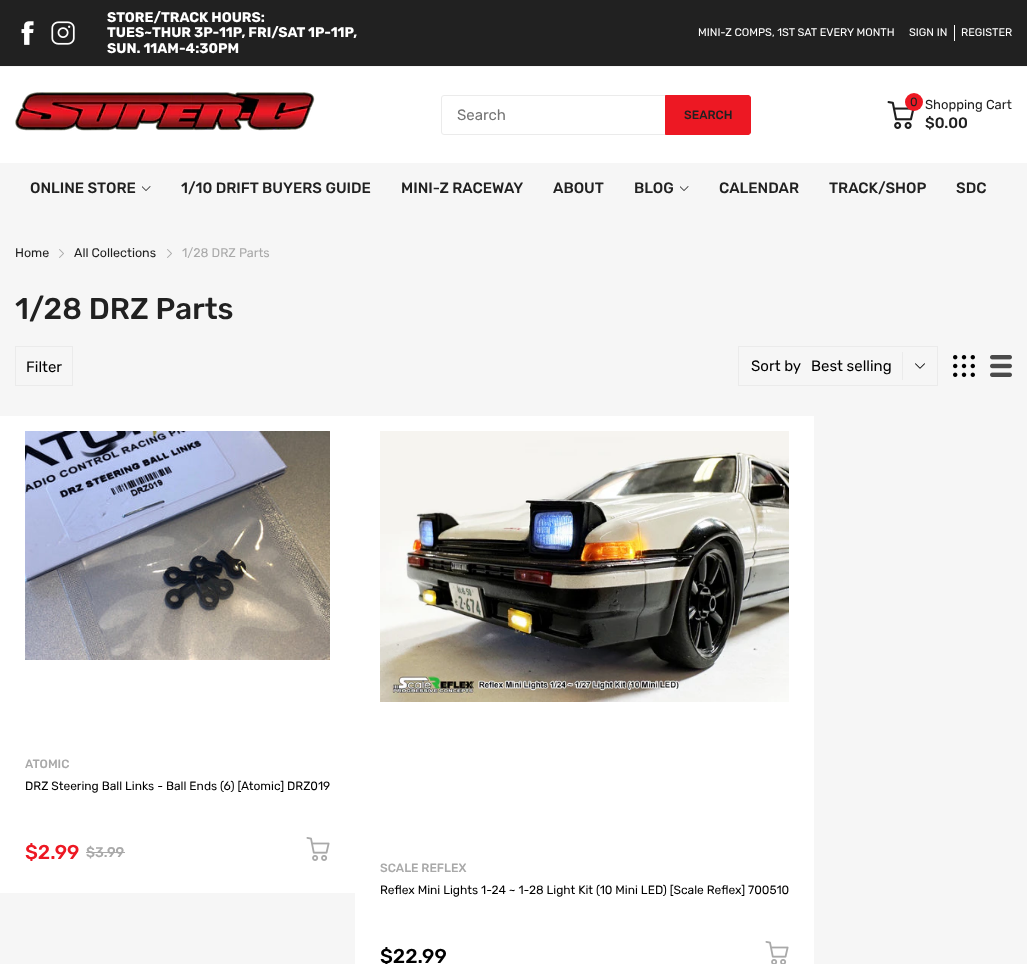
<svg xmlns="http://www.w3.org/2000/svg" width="1027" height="964">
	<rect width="100%" height="100%" fill="#F6F6F6" />
	<rect x="0" y="0" width="1027" height="66" fill="#212121" />
	<image x="21" y="21" width="13" height="24" href="assets/img1.png" />
	<image x="51" y="21" width="24" height="24" href="assets/img2.png" />
	<g font-family="Rubik" font-size="14" font-weight="700" fill="#FFFFFF">
		<text x="107" y="22">STORE/TRACK HOURS:</text>
		<text x="107" y="37">TUES~THUR 3P-11P, FRI/SAT 1P-11P,</text>
		<text x="107" y="53">SUN. 11AM-4:30PM</text>
	</g>
	<g font-family="Rubik" font-size="11" fill="#FFFFFF">
		<text x="698" y="36">MINI-Z COMPS, 1ST SAT EVERY MONTH</text>
		<text x="909" y="36">SIGN IN</text>
	</g>
	<rect x="954" y="25" width="1" height="16" fill="#FFFFFF" />
	<text x="961" y="36" font-family="Rubik" font-size="11" fill="#FFFFFF">REGISTER</text>
	<rect x="0" y="67" width="1027" height="96" fill="#FFFFFF" />
	<image x="15" y="92" width="300" height="39" href="assets/img3.png" />
	<rect x="441.5" y="95.5" width="309" height="39" rx="2.5" fill="none" stroke="#EBEBEB" />
	<text x="457" y="120" font-family="Rubik" font-size="15" fill="#757575">Search</text>
	<path d="M665.5 95.5H748C749.5 95.5 750.5 96.5 750.5 98V132C750.5 133.5 749.5 134.5 748 134.5H665.5Z" fill="#ED1823" stroke="#ED1823" />
	<text x="684" y="119" font-family="Rubik" font-size="12" font-weight="500" fill="#212121">SEARCH</text>
	<image x="887" y="101" width="28" height="28" href="assets/img4.png" />
	<circle cx="914" cy="102" r="9" fill="#ED1823" />
	<text x="910" y="106" font-family="Rubik" font-size="12" fill="#212121">0</text>
	<text x="925" y="109" font-family="Rubik" font-size="13" fill="#212121">Shopping Cart</text>
	<g font-family="Rubik" font-size="15" font-weight="500" fill="#212121">
		<text x="925" y="128">$0.00</text>
		<text x="30" y="193">ONLINE STORE</text>
	</g>
	<image x="142" y="186" width="9" height="5" href="assets/img5.png" />
	<g font-family="Rubik" font-size="15" font-weight="500" fill="#212121">
		<text x="181" y="193">1/10 DRIFT BUYERS GUIDE</text>
		<text x="401" y="193">MINI-Z RACEWAY</text>
		<text x="553" y="193">ABOUT</text>
		<text x="634" y="193">BLOG</text>
	</g>
	<image x="680" y="186" width="9" height="5" href="assets/img5.png" />
	<g font-family="Rubik" font-size="15" font-weight="500" fill="#212121">
		<text x="719" y="193">CALENDAR</text>
		<text x="829" y="193">TRACK/SHOP</text>
		<text x="956" y="193">SDC</text>
	</g>
	<text x="15" y="257" font-family="Rubik" font-size="12.5" fill="#212121">Home</text>
	<image x="59" y="249" width="5" height="9" href="assets/img6.png" />
	<text x="74" y="257" font-family="Rubik" font-size="12.5" fill="#212121">All Collections</text>
	<image x="167" y="249" width="5" height="9" href="assets/img6.png" />
	<text x="182" y="257" font-family="Rubik" font-size="12.5" fill="#A9A9A9">1/28 DRZ Parts</text>
	<text x="15" y="319" font-family="Rubik" font-size="30" font-weight="500" fill="#212121">1/28 DRZ Parts</text>
	<rect x="15.5" y="346.5" width="57" height="39" fill="none" stroke="#EBEBEB" />
	<text x="26" y="372" font-family="Rubik" font-size="15" fill="#000000">Filter</text>
	<rect x="738.5" y="346.5" width="199" height="39" fill="none" stroke="#EBEBEB" />
	<text x="751" y="371" font-family="Rubik" font-size="15" fill="#000000">Sort by</text>
	<rect x="902" y="352" width="1" height="28" fill="#EBEBEB" />
	<text x="811" y="371" font-family="Rubik" font-size="15" fill="#000000">Best selling</text>
	<image x="915" y="363" width="10" height="6" href="assets/img7.png" />
	<image x="953" y="355" width="22" height="22" href="assets/img8.png" />
	<image x="990" y="355" width="22" height="22" href="assets/img9.png" />
	<rect x="0" y="416" width="355" height="477" fill="#FFFFFF" />
	<image x="25" y="431" width="305" height="229" href="assets/img10.png" />
	<text x="25" y="768" font-family="Rubik" font-size="12" font-weight="500" fill="#A9A9A9">ATOMIC</text>
	<text x="25" y="790" font-family="Rubik" font-size="12" fill="#000000">DRZ Steering Ball Links - Ball Ends (6) [Atomic] DRZ019</text>
	<text x="25" y="859" font-family="Rubik" font-size="20" font-weight="500" fill="#ED1823">$2.99</text>
	<text x="86" y="857" font-family="Rubik" font-size="14" font-weight="500" fill="#A9A9A9">$3.99</text>
	<rect x="86" y="852" width="39" height="1" fill="#A9A9A9" />
	<image x="306" y="837" width="24" height="24" href="assets/img11.png" />
	<rect x="355" y="416" width="459" height="548" fill="#FFFFFF" />
	<image x="380" y="431" width="409" height="271" href="assets/img12.png" />
	<text x="380" y="872" font-family="Rubik" font-size="12" font-weight="500" fill="#A9A9A9">SCALE REFLEX</text>
	<text x="380" y="894" font-family="Rubik" font-size="12" fill="#000000">Reflex Mini Lights 1-24 ~ 1-28 Light Kit (10 Mini LED) [Scale Reflex] 700510</text>
	<text x="380" y="963" font-family="Rubik" font-size="20" font-weight="500" fill="#000000">$22.99</text>
	<image x="765" y="941" width="24" height="23" href="assets/img13.png" />
</svg>
